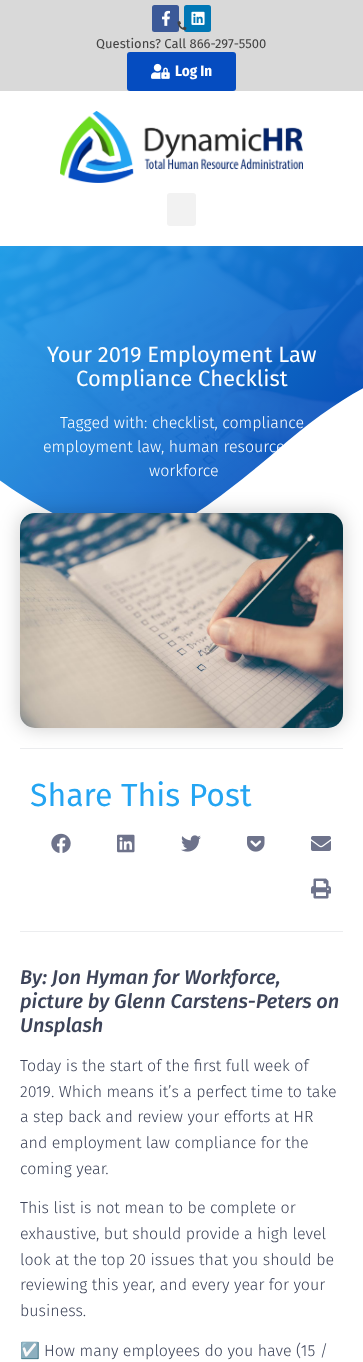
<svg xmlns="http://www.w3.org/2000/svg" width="363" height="1362">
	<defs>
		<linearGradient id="g1" gradientUnits="userSpaceOnUse" x1="1.9" y1="244" x2="361" y2="545"><stop offset="0" stop-color="#24A5F2" /><stop offset="0.89" stop-color="#054CC0" /></linearGradient>
		<clipPath id="clip1"><rect x="0" y="349" width="363" height="195" /></clipPath>
	</defs>
	<rect width="100%" height="100%" fill="#FFFFFF" />
	<rect x="0" y="0" width="363" height="91" fill="#D9D9D9" />
	<rect x="152" y="5" width="27" height="27" rx="2.5" fill="#3B5998" />
	<image x="162" y="10" width="8" height="16" href="assets/img1.png" />
	<rect x="184" y="5" width="27" height="27" rx="2.5" fill="#0077B5" />
	<image x="191" y="11" width="14" height="14" href="assets/img2.png" />
	<image x="177" y="21" width="10" height="10" href="assets/img3.png" />
	<text x="96" y="48" font-family="Fira Sans" font-size="13" fill="#434343">Questions? Call 866-297-5500</text>
	<rect x="127" y="52" width="109" height="39" rx="3" fill="#054CC0" />
	<image x="151" y="63" width="19" height="16" href="assets/img4.png" />
	<text x="175" y="76" font-family="Fira Sans Condensed" font-size="15" font-weight="700" fill="#FFFFFF">Log In</text>
	<image x="60" y="111" width="243" height="72" href="assets/img5.png" />
	<rect x="167" y="193" width="29" height="33" rx="3" fill="#F2F2F2" />
	<rect x="0" y="246" width="363" height="267" fill="url(#g1)" />
	<image x="0" y="246" width="363" height="267" href="assets/img6.png" />
	<text x="47" y="362" font-family="Fira Sans" font-size="22" fill="#FFFFFF">Your 2019 Employment Law</text>
	<g clip-path="url(#clip1)">
		<path d="M108 532C130 537 157 531 180 522C202 512 247 476 275 452C346 389 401 365 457 355C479 351 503 348 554 360C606 372 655 410 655 410V545H-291V486C-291 486-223 422-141 426C-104 427-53 439-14 470C6 486 35 505 61 517C87 529 98 530 108 532Z" fill="#FFFFFF" />
	</g>
	<text x="76" y="386" font-family="Fira Sans" font-size="22" fill="#FFFFFF">Compliance Checklist</text>
	<g font-family="Fira Sans" font-size="16" font-weight="300" fill="#FFFFFF">
		<text x="60" y="428">Tagged with: checklist, compliance</text>
		<text x="43" y="452">employment law</text>
		<text x="161" y="452">, human resource</text>
		<text x="149" y="476">workforce</text>
	</g>
	<rect x="20" y="513" width="323" height="215" rx="15" fill="#000000" fill-opacity="0.2" filter="blur(10px)" />
	<image x="20" y="513" width="323" height="215" href="assets/img7.png" />
	<rect x="20" y="748" width="323" height="1" fill="#EBECEE" />
	<rect x="20" y="931" width="323" height="1" fill="#ECEDEF" />
	<text x="30" y="806" font-family="Fira Sans" font-size="32" fill="#24A5F2">Share This Post</text>
	<image x="51" y="833" width="20" height="20" href="assets/img8.png" />
	<image x="117" y="834" width="18" height="19" href="assets/img9.png" />
	<image x="181" y="835" width="20" height="17" href="assets/img10.png" />
	<image x="247" y="836" width="18" height="16" href="assets/img11.png" />
	<image x="311" y="836" width="20" height="15" href="assets/img12.png" />
	<image x="311" y="878" width="20" height="21" href="assets/img13.png" />
	<g font-family="Fira Sans" font-size="20" font-weight="500" font-style="italic" fill="#3D4459">
		<text x="20" y="984">By: Jon Hyman for Workforce,</text>
		<text x="20" y="1008">picture by Glenn Carstens-Peters on</text>
		<text x="20" y="1032">Unsplash</text>
	</g>
	<g font-family="Fira Sans" font-size="16" font-weight="300" fill="#3D4459">
		<text x="20" y="1071">Today is the start of the first full week of</text>
		<text x="20" y="1097">2019. Which means it’s a perfect time to take</text>
		<text x="20" y="1122">a step back and review your efforts at HR</text>
		<text x="20" y="1148">and employment law compliance for the</text>
		<text x="20" y="1174">coming year.</text>
		<text x="20" y="1213">This list is not mean to be complete or</text>
		<text x="20" y="1239">exhaustive, but should provide a high level</text>
		<text x="20" y="1265">look at the top 20 issues that you should be</text>
		<text x="20" y="1290">reviewing this year, and every year for your</text>
		<text x="20" y="1316">business.</text>
	</g>
	<text x="20" y="1356" font-family="Noto Color Emoji" font-size="16" fill="#3D4459">☑️</text>
	<text x="44" y="1356" font-family="Fira Sans" font-size="16" font-weight="300" fill="#3D4459">How many employees do you have (15 /</text>
</svg>
